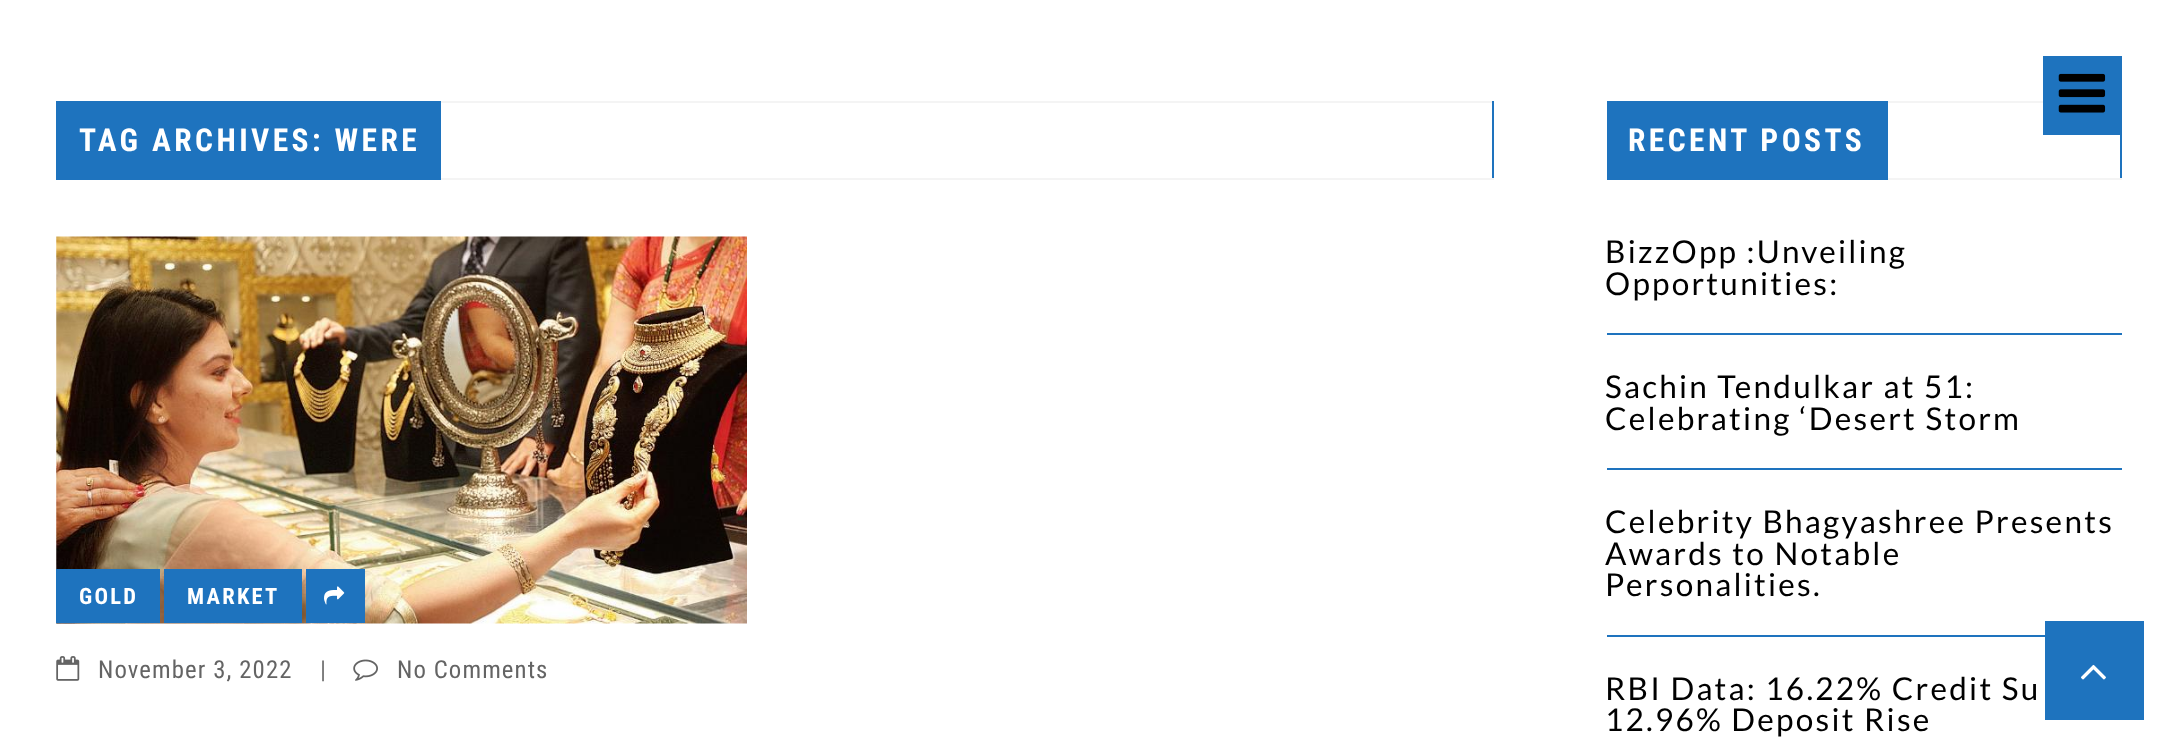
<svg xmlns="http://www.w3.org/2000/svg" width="2177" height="753">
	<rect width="100%" height="100%" fill="#FFFFFF" />
	<rect x="2043" y="56" width="79" height="79" fill="#1E73BE" />
	<image x="2058" y="73" width="48" height="40" href="assets/img1.png" />
	<rect x="441" y="101" width="1053" height="2" fill="#F4F4F4" />
	<rect x="1492" y="101" width="2" height="79" fill="#1E73BE" />
	<rect x="441" y="178" width="1053" height="2" fill="#F4F4F4" />
	<rect x="56" y="101" width="385" height="79" fill="#1E73BE" />
	<text x="79" y="151" font-family="Roboto Condensed" font-size="31.5" font-weight="700" letter-spacing="3.4" fill="#FFFFFF">TAG ARCHIVES: WERE</text>
	<image x="56" y="236" width="691" height="388" href="assets/img2.png" />
	<rect x="56" y="569" width="104" height="54" fill="#1E73BE" />
	<text x="79" y="604" font-family="Roboto Condensed" font-size="22.5" font-weight="700" letter-spacing="2.25" fill="#FFFFFF">GOLD</text>
	<rect x="164" y="569" width="138" height="54" fill="#1E73BE" />
	<text x="187" y="604" font-family="Roboto Condensed" font-size="22.5" font-weight="700" letter-spacing="2.25" fill="#FFFFFF">MARKET</text>
	<rect x="306" y="569" width="59" height="54" fill="#1E73BE" />
	<image x="324" y="586" width="21" height="19" href="assets/img3.png" />
	<image x="56" y="656" width="24" height="25" href="assets/img4.png" />
	<text x="98" y="678" font-family="Roboto Condensed" font-size="24.75" letter-spacing="1.1" fill="#646464">November 3, 2022</text>
	<text x="320" y="678" font-family="Roboto Condensed" font-size="24.75" fill="#747474">|</text>
	<image x="353" y="659" width="25" height="22" href="assets/img5.png" />
	<text x="397" y="678" font-family="Roboto Condensed" font-size="24.75" letter-spacing="1.1" fill="#646464">No Comments</text>
	<rect x="1888" y="101" width="155" height="2" fill="#F4F4F4" />
	<rect x="2120" y="135" width="2" height="45" fill="#1E73BE" />
	<rect x="1888" y="178" width="234" height="2" fill="#F4F4F4" />
	<rect x="1607" y="101" width="281" height="79" fill="#1E73BE" />
	<text x="1628" y="151" font-family="Roboto Condensed" font-size="31.5" font-weight="700" letter-spacing="3.4" fill="#FFFFFF">RECENT POSTS</text>
	<rect x="1607" y="333" width="515" height="2" fill="#1E73BE" />
	<g font-family="Lato" font-size="31.5" letter-spacing="2.25" fill="#000000">
		<text x="1605" y="263">BizzOpp :Unveiling</text>
		<text x="1605" y="295">Opportunities:</text>
	</g>
	<rect x="1607" y="468" width="515" height="2" fill="#1E73BE" />
	<g font-family="Lato" font-size="31.5" letter-spacing="2.25" fill="#000000">
		<text x="1605" y="398">Sachin Tendulkar at 51:</text>
		<text x="1605" y="430">Celebrating ‘Desert Storm</text>
	</g>
	<rect x="1607" y="635" width="438" height="2" fill="#1E73BE" />
	<g font-family="Lato" font-size="31.5" letter-spacing="2.25" fill="#000000">
		<text x="1605" y="533">Celebrity Bhagyashree Presents</text>
		<text x="1605" y="565">Awards to Notable</text>
		<text x="1605" y="596">Personalities.</text>
		<text x="1605" y="700">RBI Data: 16.22% Credit Su</text>
		<text x="1605" y="731">12.96% Deposit Rise</text>
	</g>
	<rect x="2045" y="621" width="99" height="99" fill="#1E73BE" />
	<image x="2081" y="664" width="25" height="16" href="assets/img6.png" />
</svg>
